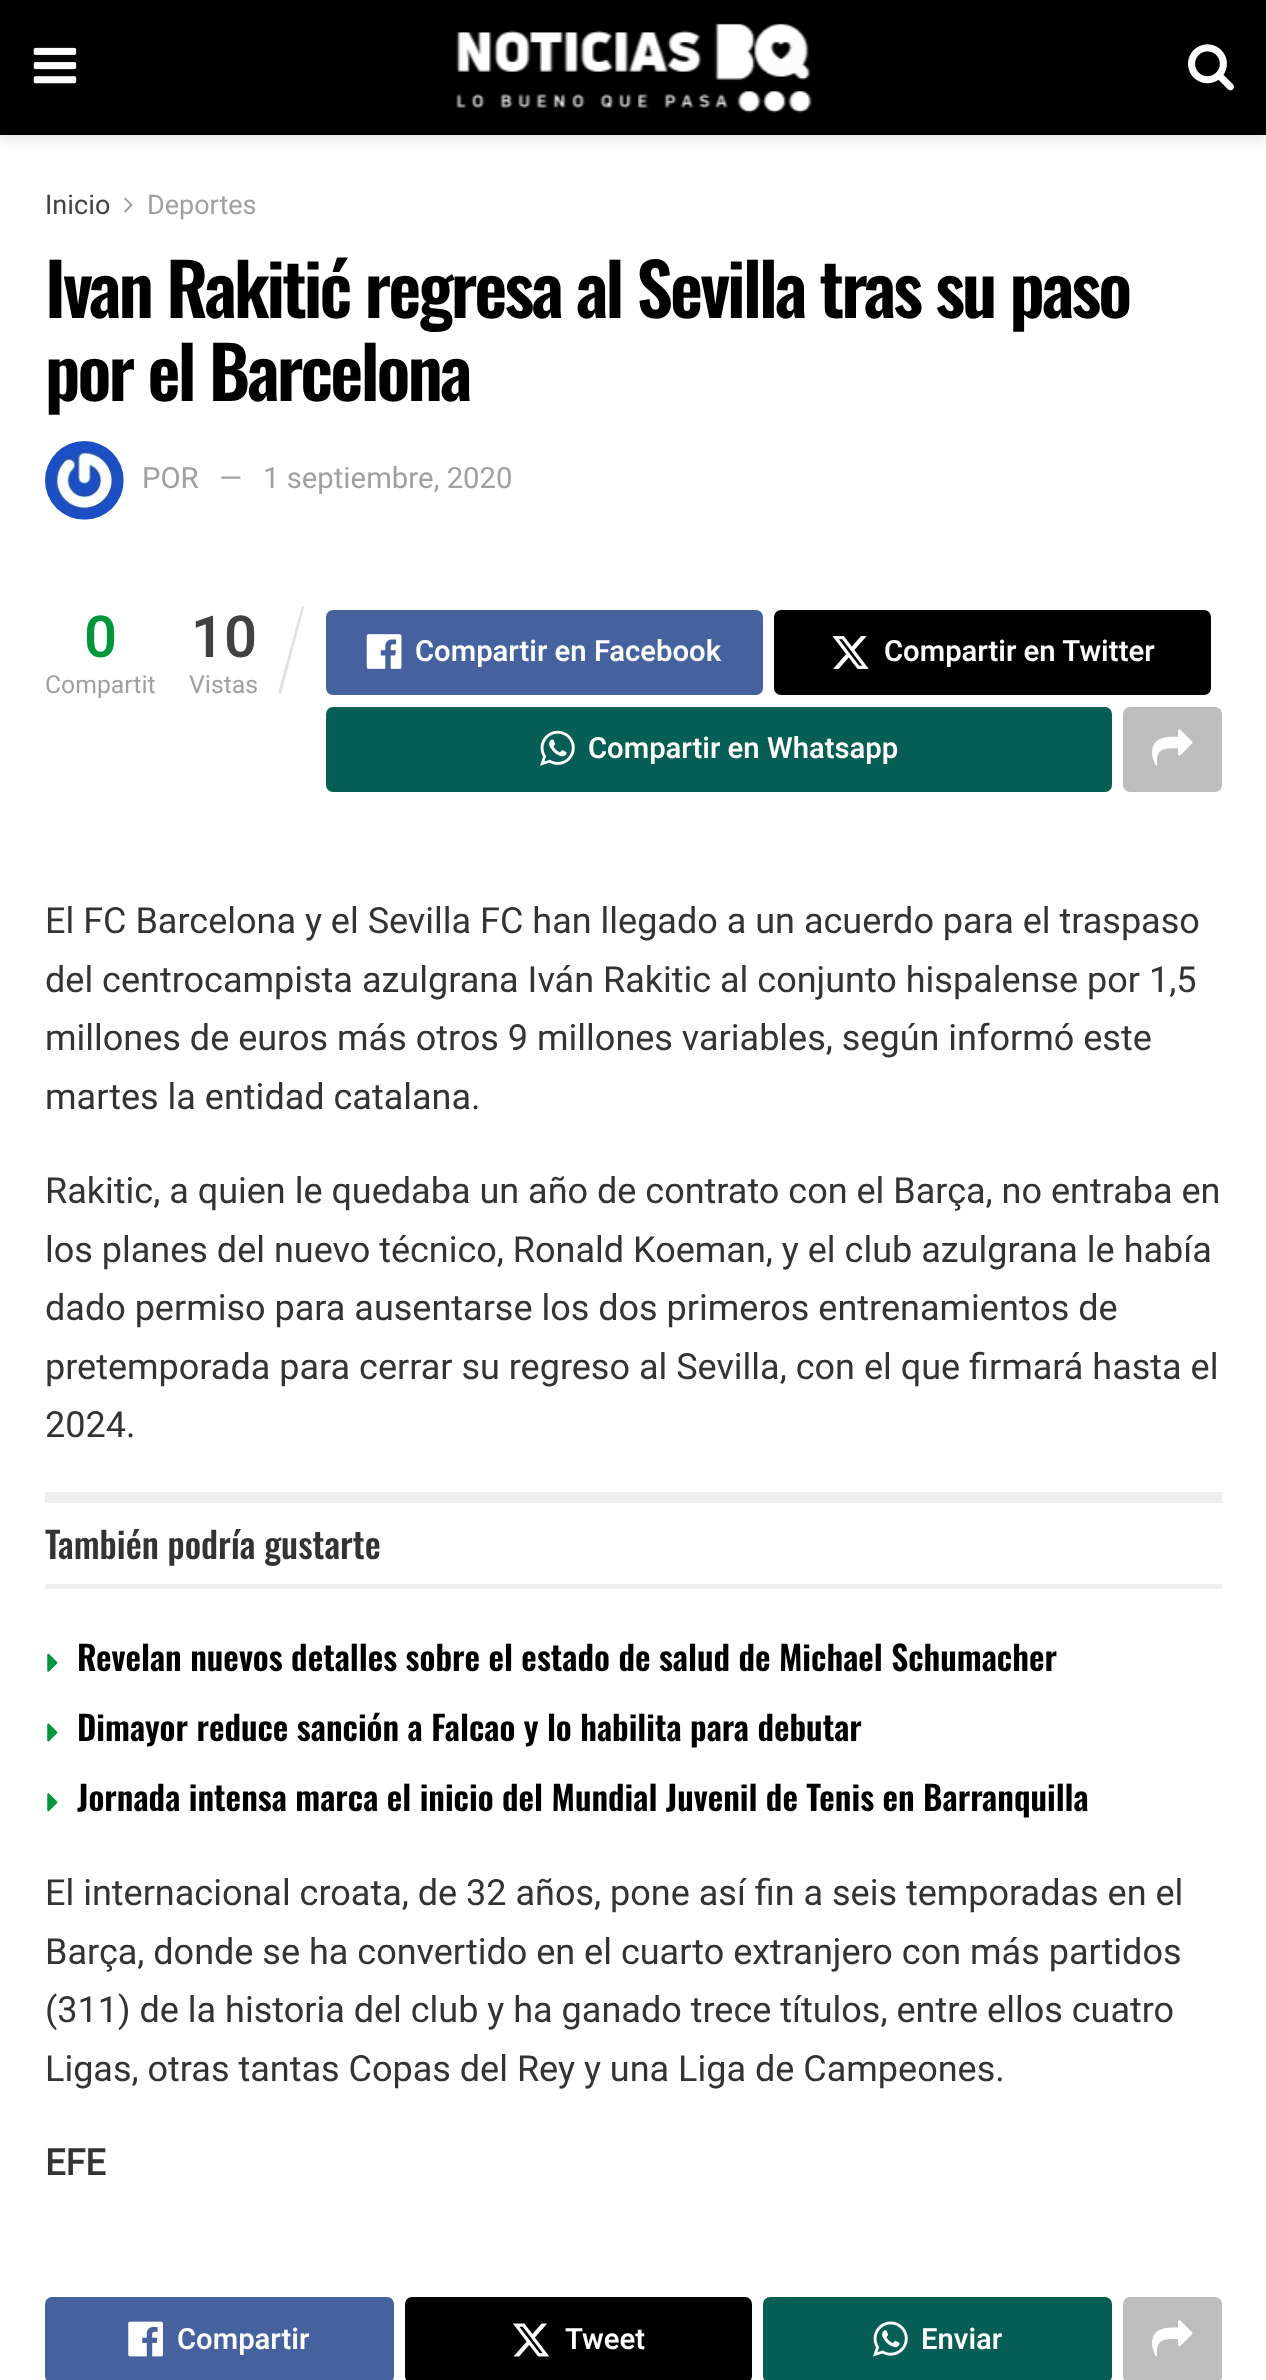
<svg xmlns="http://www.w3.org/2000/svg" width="1266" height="2380">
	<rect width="100%" height="100%" fill="#FFFFFF" />
	<rect x="0" y="5" width="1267" height="135" fill="#000000" fill-opacity="0.1" filter="blur(7px)" />
	<rect x="0" y="0" width="1266" height="135" fill="#000000" />
	<image x="33" y="47" width="44" height="37" href="assets/img1.png" />
	<image x="456" y="23" width="356" height="90" href="assets/img2.png" />
	<image x="1188" y="44" width="46" height="47" href="assets/img3.png" />
	<text x="45" y="214" font-family="Heebo" font-size="27" fill="#424242">Inicio</text>
	<image x="124" y="197" width="9" height="16" href="assets/img4.png" />
	<text x="147" y="214" font-family="Heebo" font-size="27" fill="#A0A0A0">Deportes</text>
	<g font-family="Oswald" font-size="72" font-weight="600" letter-spacing="-2.9" fill="#000000">
		<text x="45" y="318">Ivan Rakitić regresa al Sevilla tras su paso</text>
		<text x="45" y="401">por el Barcelona</text>
	</g>
	<image x="45" y="441" width="79" height="79" href="assets/img5.png" />
	<g font-family="Heebo" font-size="29.25" fill="#A0A0A0">
		<text x="142" y="488">POR</text>
		<text x="220" y="488">—</text>
		<text x="263" y="488">1 septiembre, 2020</text>
	</g>
	<text x="84" y="657" font-family="Heebo" font-size="58" font-weight="600" fill="#009639">0</text>
	<text x="45" y="693" font-family="Heebo" font-size="24.75" fill="#A0A0A0">Compartit</text>
	<text x="191" y="657" font-family="Heebo" font-size="58" font-weight="600" fill="#424242">10</text>
	<path d="M302 606L304 607L281 694L278 693Z" fill="#E0E0E0" />
	<text x="189" y="693" font-family="Heebo" font-size="24.75" fill="#A0A0A0">Vistas</text>
	<rect x="326" y="610" width="437" height="85" rx="7" fill="#45629F" />
	<image x="366" y="634" width="36" height="35" href="assets/img6.png" />
	<text x="415" y="661" font-family="Heebo" font-size="29.25" font-weight="600" fill="#FFFFFF">Compartir en Facebook</text>
	<rect x="774" y="610" width="437" height="85" rx="7" fill="#000000" />
	<image x="832" y="636" width="37" height="33" href="assets/img7.png" />
	<text x="884" y="661" font-family="Heebo" font-size="29.25" font-weight="600" fill="#FFFFFF">Compartir en Twitter</text>
	<rect x="326" y="707" width="786" height="85" rx="7" fill="#075E54" />
	<image x="540" y="730" width="35" height="36" href="assets/img8.png" />
	<text x="588" y="758" font-family="Heebo" font-size="29.25" font-weight="600" fill="#FFFFFF">Compartir en Whatsapp</text>
	<rect x="1123" y="707" width="99" height="85" rx="7" fill="#BDBDBD" />
	<image x="1152" y="729" width="41" height="37" href="assets/img9.png" />
	<g font-family="Roboto" font-size="36" fill="#333333">
		<text x="45" y="933">El FC Barcelona y el Sevilla FC han llegado a un acuerdo para el traspaso</text>
		<text x="45" y="992">del centrocampista azulgrana Iván Rakitic al conjunto hispalense por 1,5</text>
		<text x="45" y="1050">millones de euros más otros 9 millones variables, según informó este</text>
		<text x="45" y="1109">martes la entidad catalana.</text>
		<text x="45" y="1203">Rakitic, a quien le quedaba un año de contrato con el Barça, no entraba en</text>
		<text x="45" y="1262">los planes del nuevo técnico, Ronald Koeman, y el club azulgrana le había</text>
		<text x="45" y="1320">dado permiso para ausentarse los dos primeros entrenamientos de</text>
		<text x="45" y="1379">pretemporada para cerrar su regreso al Sevilla, con el que firmará hasta el</text>
		<text x="45" y="1437">2024.</text>
	</g>
	<rect x="45" y="1492" width="1177" height="11" fill="#EEEEEE" />
	<rect x="45" y="1584" width="1177" height="5" fill="#EEEEEE" />
	<text x="45" y="1559" font-family="Oswald" font-size="36" font-weight="500" fill="#333333">También podría gustarte</text>
	<image x="47" y="1653" width="11" height="19" href="assets/img10.png" />
	<text x="77" y="1671" font-family="Oswald" font-size="33.75" font-weight="600" fill="#000000">Revelan nuevos detalles sobre el estado de salud de Michael Schumacher</text>
	<image x="47" y="1723" width="11" height="19" href="assets/img11.png" />
	<text x="77" y="1741" font-family="Oswald" font-size="33.75" font-weight="600" fill="#000000">Dimayor reduce sanción a Falcao y lo habilita para debutar</text>
	<image x="47" y="1793" width="11" height="19" href="assets/img12.png" />
	<text x="77" y="1811" font-family="Oswald" font-size="33.75" font-weight="600" fill="#000000">Jornada intensa marca el inicio del Mundial Juvenil de Tenis en Barranquilla</text>
	<g font-family="Roboto" font-size="36" fill="#333333">
		<text x="45" y="1905">El internacional croata, de 32 años, pone así fin a seis temporadas en el</text>
		<text x="45" y="1964">Barça, donde se ha convertido en el cuarto extranjero con más partidos</text>
		<text x="45" y="2022">(311) de la historia del club y ha ganado trece títulos, entre ellos cuatro</text>
		<text x="45" y="2081">Ligas, otras tantas Copas del Rey y una Liga de Campeones.</text>
	</g>
	<text x="45" y="2175" font-family="Roboto" font-size="36" font-weight="700" fill="#333333">EFE</text>
	<rect x="45" y="2297" width="349" height="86" rx="7" fill="#45629F" />
	<image x="128" y="2321" width="35" height="36" href="assets/img13.png" />
	<text x="177" y="2349" font-family="Heebo" font-size="29.25" font-weight="600" fill="#FFFFFF">Compartir</text>
	<rect x="405" y="2297" width="347" height="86" rx="7" fill="#000000" />
	<image x="513" y="2323" width="37" height="34" href="assets/img14.png" />
	<text x="565" y="2349" font-family="Heebo" font-size="29.25" font-weight="600" fill="#FFFFFF">Tweet</text>
	<rect x="763" y="2297" width="349" height="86" rx="7" fill="#075E54" />
	<image x="873" y="2321" width="35" height="36" href="assets/img15.png" />
	<text x="921" y="2349" font-family="Heebo" font-size="29.25" font-weight="600" fill="#FFFFFF">Enviar</text>
	<rect x="1123" y="2297" width="99" height="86" rx="7" fill="#BDBDBD" />
	<image x="1152" y="2320" width="41" height="37" href="assets/img16.png" />
</svg>
